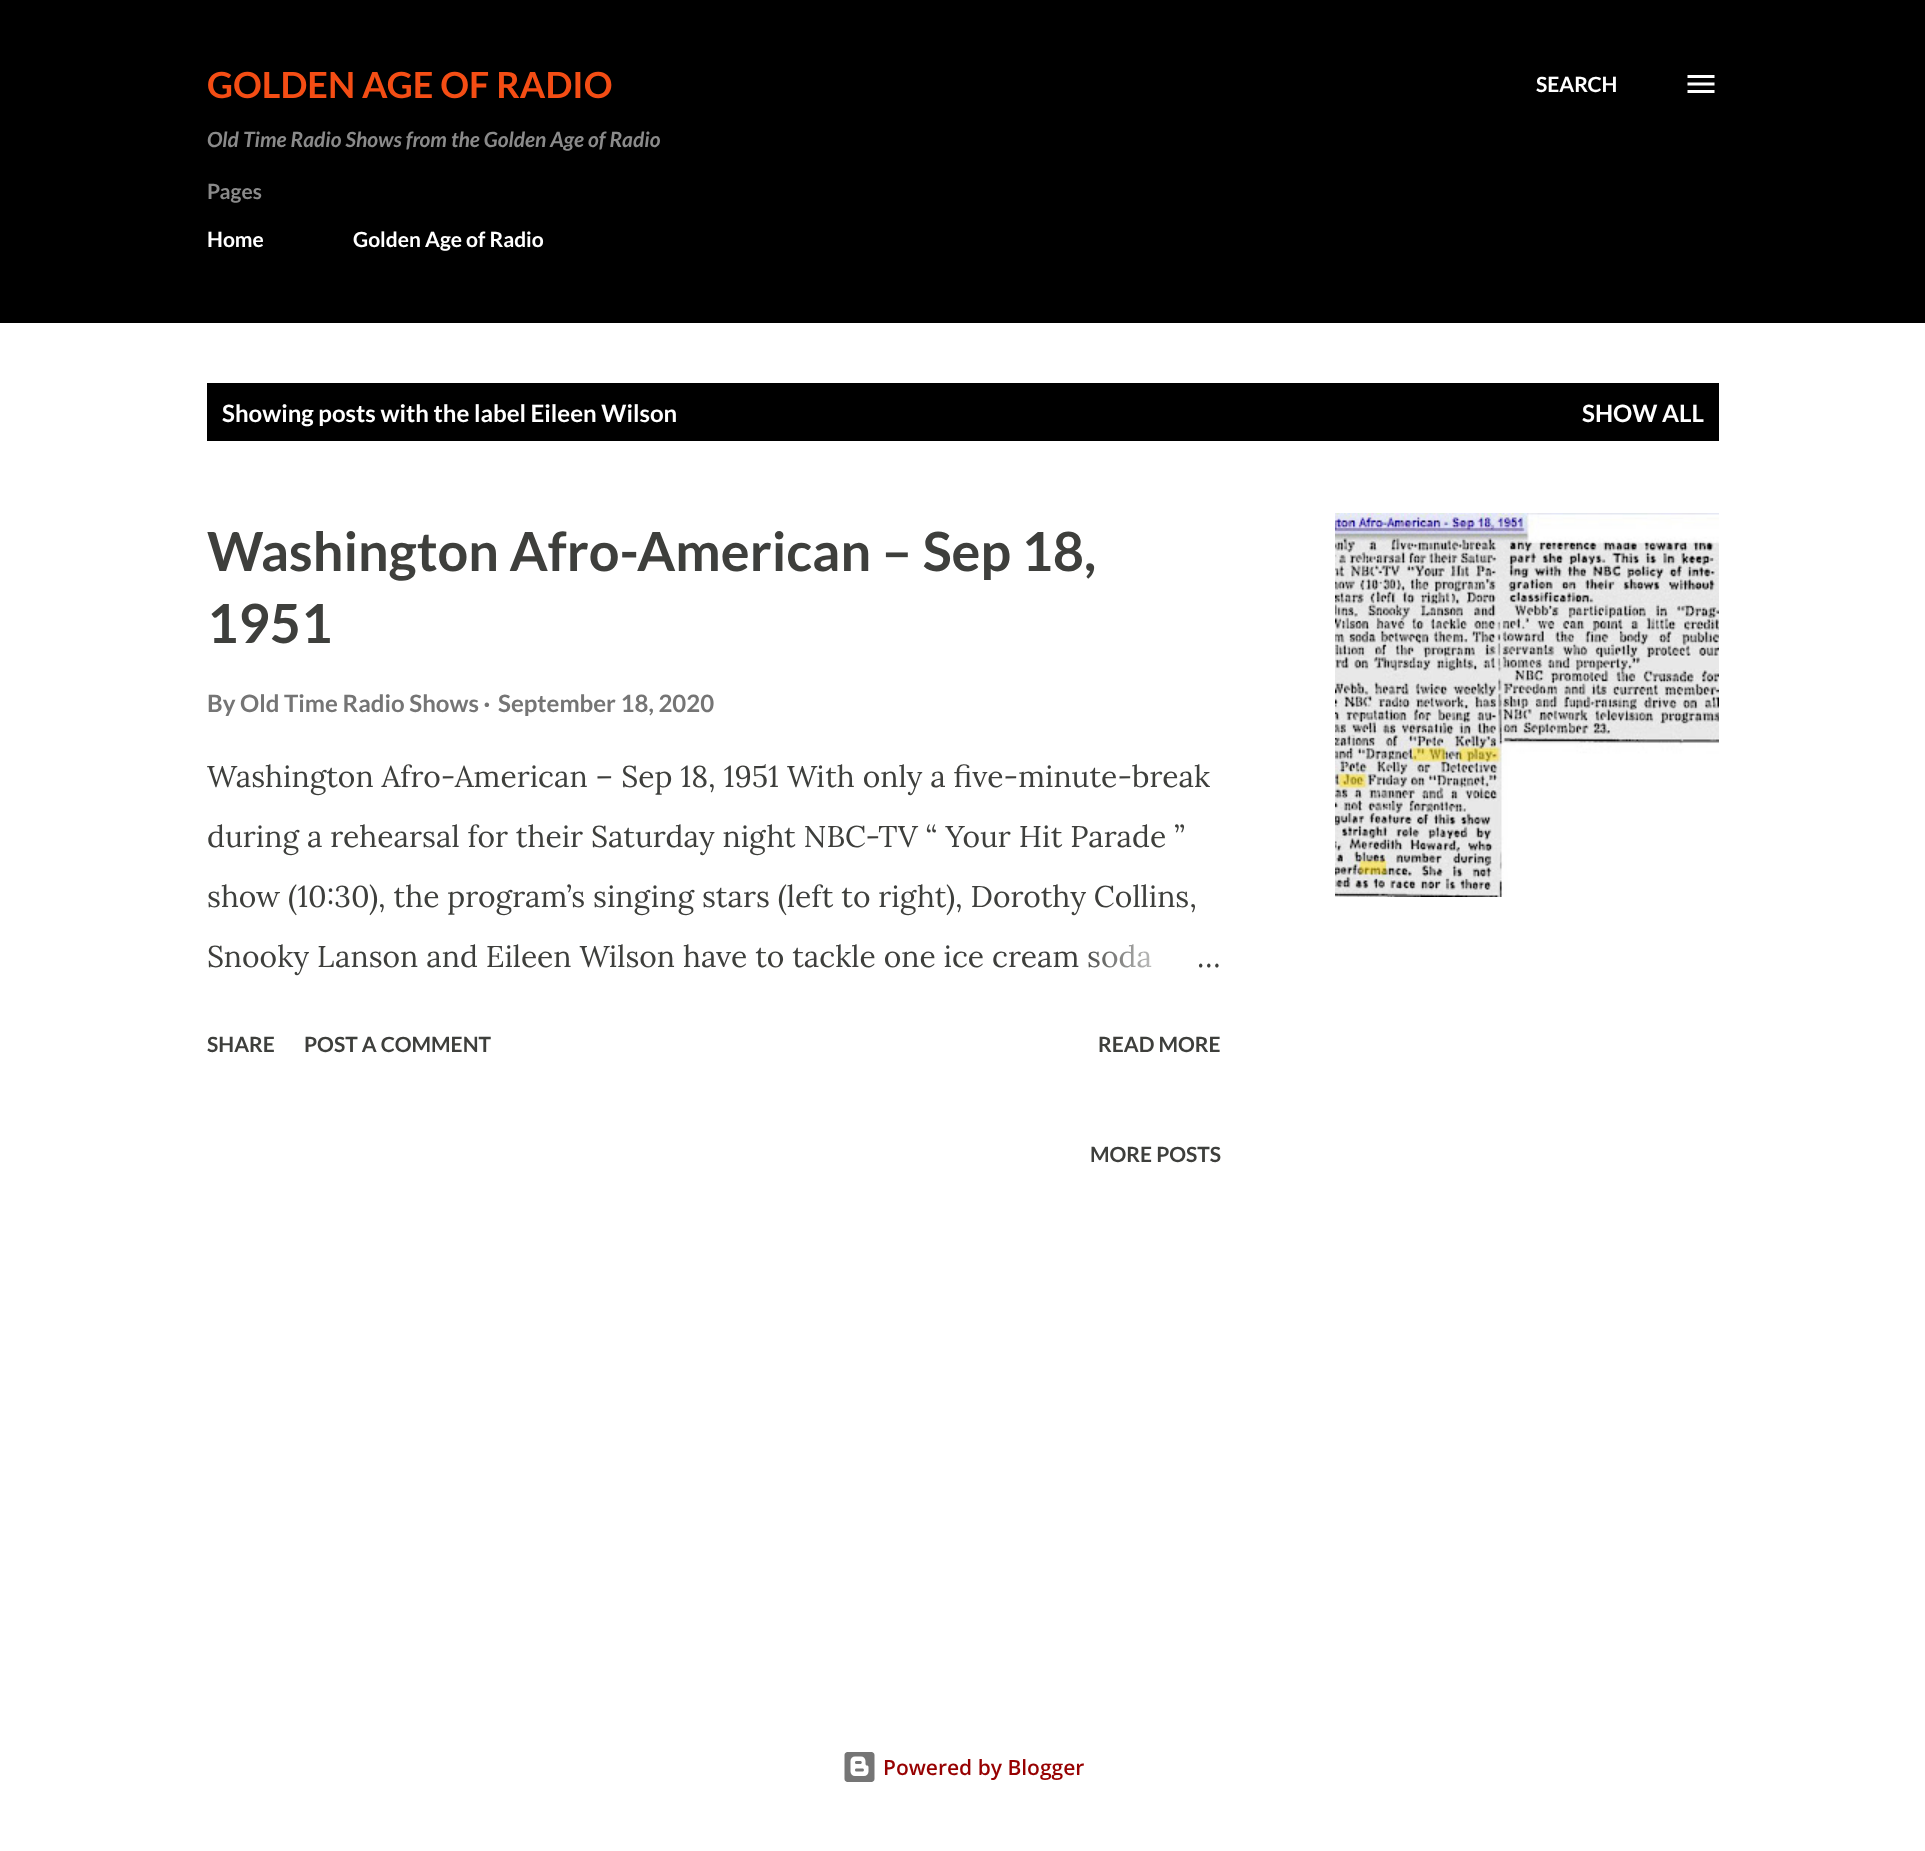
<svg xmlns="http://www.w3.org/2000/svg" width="1925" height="1851">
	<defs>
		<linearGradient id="g1" gradientUnits="userSpaceOnUse" x1="1221" y1="956" x2="1077" y2="956"><stop offset="0" stop-color="#FFFFFF" /><stop offset="0.2" stop-color="#FFFFFF" /><stop offset="1" stop-color="#FFFFFF" stop-opacity="0" /></linearGradient>
	</defs>
	<rect width="100%" height="100%" fill="#FFFFFF" />
	<rect x="0" y="0" width="1925" height="323" fill="#000000" />
	<text x="207" y="98" font-family="Lato" font-size="36" font-weight="700" fill="#F44D14">GOLDEN AGE OF RADIO</text>
	<text x="207" y="147" font-family="Lato" font-size="21" font-weight="700" font-style="italic" fill="#8A8A8A">Old Time Radio Shows from the Golden Age of Radio</text>
	<text x="1536" y="92" font-family="Lato" font-size="21" font-weight="700" fill="#FFFFFF">SEARCH</text>
	<image x="1687" y="75" width="28" height="18" href="assets/img1.png" />
	<text x="207" y="199" font-family="Lato" font-size="21" font-weight="700" fill="#8A8A8A">Pages</text>
	<g font-family="Lato" font-size="21" font-weight="700" fill="#FFFFFF">
		<text x="207" y="247">Home</text>
		<text x="353" y="247">Golden Age of Radio</text>
	</g>
	<rect x="207" y="383" width="1512" height="58" fill="#000000" />
	<g font-family="Lato" font-size="24" font-weight="700" fill="#FFFFFF">
		<text x="222" y="422">Showing posts with the label Eileen Wilson</text>
		<text x="1582" y="422">SHOW ALL</text>
	</g>
	<g font-family="Lato" font-size="54" font-weight="700" fill="#3E3F3C">
		<text x="207" y="571">Washington Afro-American – Sep 18,</text>
		<text x="207" y="643">1951</text>
	</g>
	<g font-family="Lato" font-size="24" font-weight="700" fill="#757575">
		<text x="207" y="712">By Old Time Radio Shows ·</text>
		<text x="498" y="712">September 18, 2020</text>
	</g>
	<g font-family="Lora" font-size="30" fill="#3E3F3C">
		<text x="207" y="787">Washington Afro-American – Sep 18, 1951 With only a five-minute-break</text>
		<text x="207" y="847">during a rehearsal for their Saturday night NBC-TV “ Your Hit Parade ”</text>
		<text x="207" y="907">show (10:30), the program’s singing stars (left to right), Dorothy Collins,</text>
		<text x="207" y="967">Snooky Lanson and Eileen Wilson have to tackle one ice cream soda</text>
	</g>
	<rect x="1088" y="944" width="64" height="24" fill="url(#g1)" />
	<text x="1197" y="967" font-family="Lora" font-size="30" fill="#3E3F3C">…</text>
	<g font-family="Lato" font-size="21" font-weight="700" fill="#3E3F3C">
		<text x="207" y="1052">SHARE</text>
		<text x="304" y="1052">POST A COMMENT</text>
		<text x="1098" y="1052">READ MORE</text>
	</g>
	<image x="1335" y="513" width="384" height="384" href="assets/img2.png" />
	<text x="1090" y="1162" font-family="Lato" font-size="21" font-weight="700" fill="#3E3F3C">MORE POSTS</text>
	<image x="844" y="1752" width="31" height="30" href="assets/img3.png" />
	<text x="883" y="1775" font-family="Open Sans" font-size="21" font-weight="600" fill="#970101">Powered by Blogger</text>
</svg>
